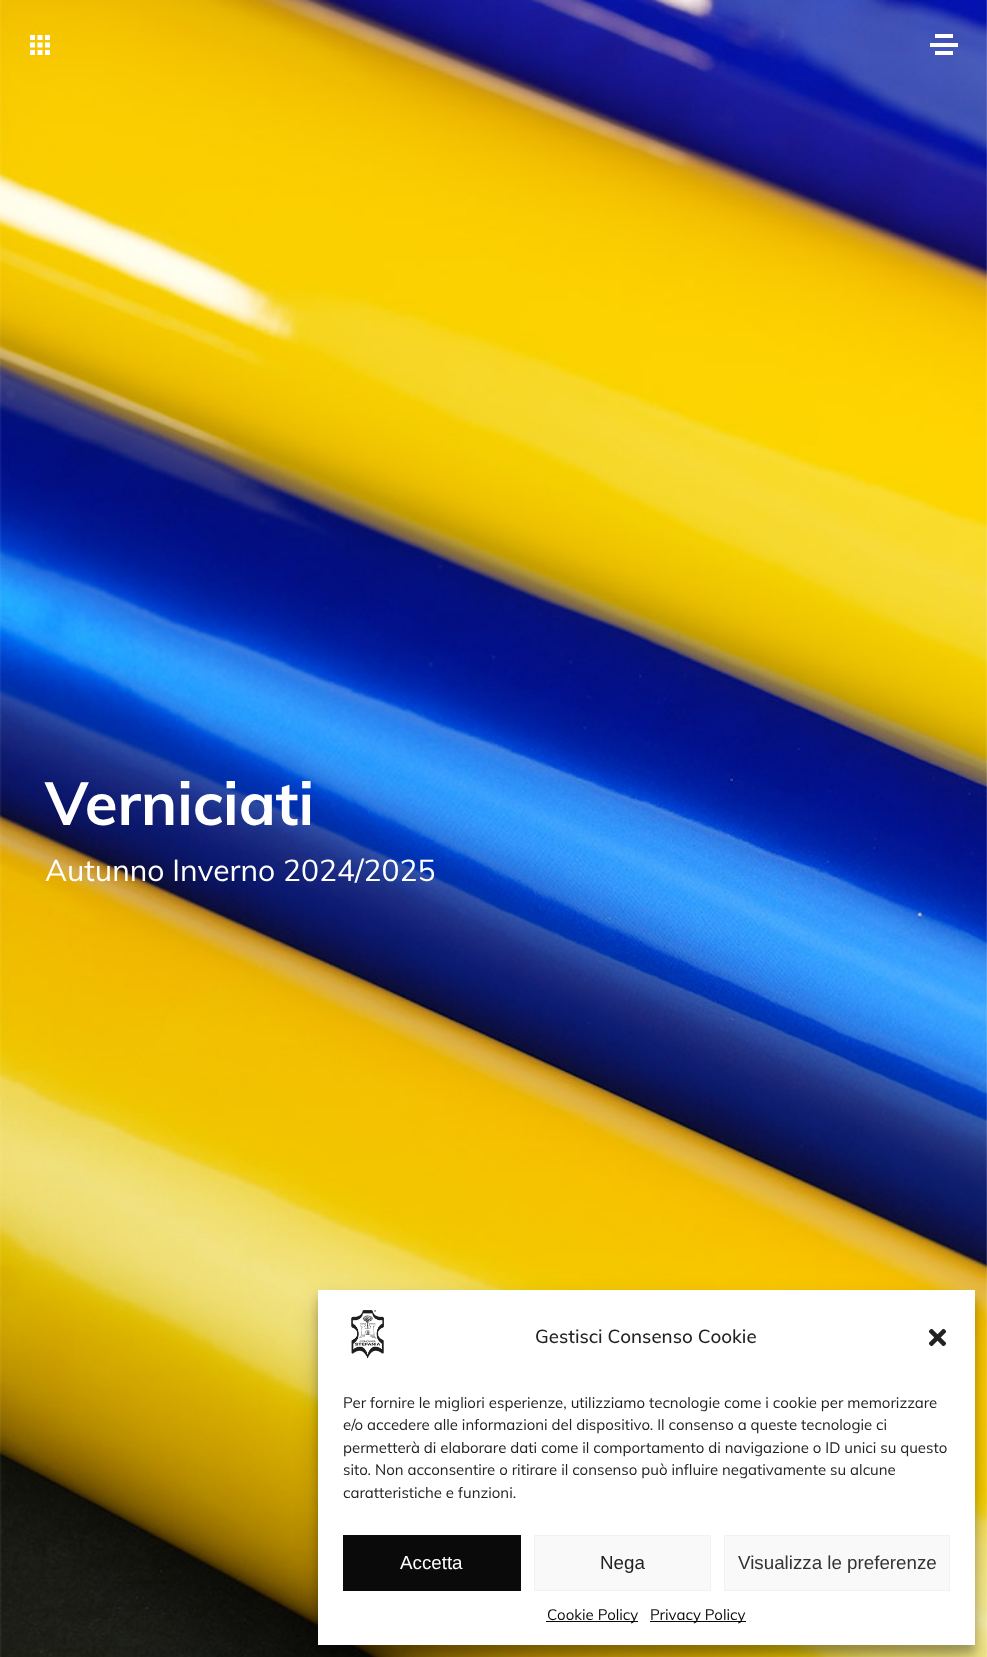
<svg xmlns="http://www.w3.org/2000/svg" width="987" height="1657">
	<rect width="100%" height="100%" fill="#FFFFFF" />
	<image x="0" y="0" width="987" height="1657" href="assets/img2.png" />
	<image x="30" y="35" width="20" height="20" href="assets/img1.png" />
	<rect x="930" y="43" width="28" height="4" fill="#FFFFFF" />
	<rect x="935" y="34" width="18" height="4" fill="#FFFFFF" />
	<rect x="935" y="51" width="18" height="4" fill="#FFFFFF" />
	<text x="45" y="825" font-family="Muli" font-size="60" font-weight="700" fill="#FFFFFF">Verniciati</text>
	<text x="45" y="881" font-family="Muli" font-size="30" fill="#FFFFFF">Autunno Inverno 2024/2025</text>
	<rect x="318" y="1298" width="657" height="355" fill="#000000" fill-opacity="0.23" filter="blur(4px)" />
	<rect x="318" y="1303" width="657" height="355" fill="#000000" fill-opacity="0.19" filter="blur(12.5px)" />
	<rect x="318" y="1290" width="657" height="355" fill="#FFFFFF" />
	<image x="351" y="1310" width="33" height="49" href="assets/img3.png" />
	<text x="535" y="1343" font-family="Muli" font-size="18.75" font-weight="500" fill="#222222">Gestisci Consenso Cookie</text>
	<image x="928" y="1328" width="19" height="19" href="assets/img4.png" />
	<g font-family="Muli" font-size="15" fill="#222222">
		<text x="343" y="1408">Per fornire le migliori esperienze, utilizziamo tecnologie come i cookie per memorizzare</text>
		<text x="343" y="1430">e/o accedere alle informazioni del dispositivo. Il consenso a queste tecnologie ci</text>
		<text x="343" y="1453">permetterà di elaborare dati come il comportamento di navigazione o ID unici su questo</text>
		<text x="343" y="1475">sito. Non acconsentire o ritirare il consenso può influire negativamente su alcune</text>
		<text x="343" y="1498">caratteristiche e funzioni.</text>
	</g>
	<rect x="343" y="1535" width="178" height="56" fill="#0A0A0A" />
	<text x="400" y="1569" font-family="Liberation Sans" font-size="18.75" fill="#FFFFFF">Accetta</text>
	<rect x="534.5" y="1535.5" width="176" height="55" fill="#F9F9F9" stroke="#F2F2F2" />
	<text x="600" y="1569" font-family="Liberation Sans" font-size="18.75" fill="#222222">Nega</text>
	<rect x="724.5" y="1535.5" width="225" height="55" fill="#F9F9F9" stroke="#F2F2F2" />
	<text x="738" y="1569" font-family="Liberation Sans" font-size="18.75" fill="#333333">Visualizza le preferenze</text>
	<rect x="546" y="1621" width="92" height="1" fill="#0A0A0A" />
	<text x="547" y="1620" font-family="Muli" font-size="15" fill="#0A0A0A">Cookie Policy</text>
	<rect x="650" y="1621" width="96" height="1" fill="#0A0A0A" />
	<text x="650" y="1620" font-family="Muli" font-size="15" fill="#0A0A0A">Privacy Policy</text>
</svg>
